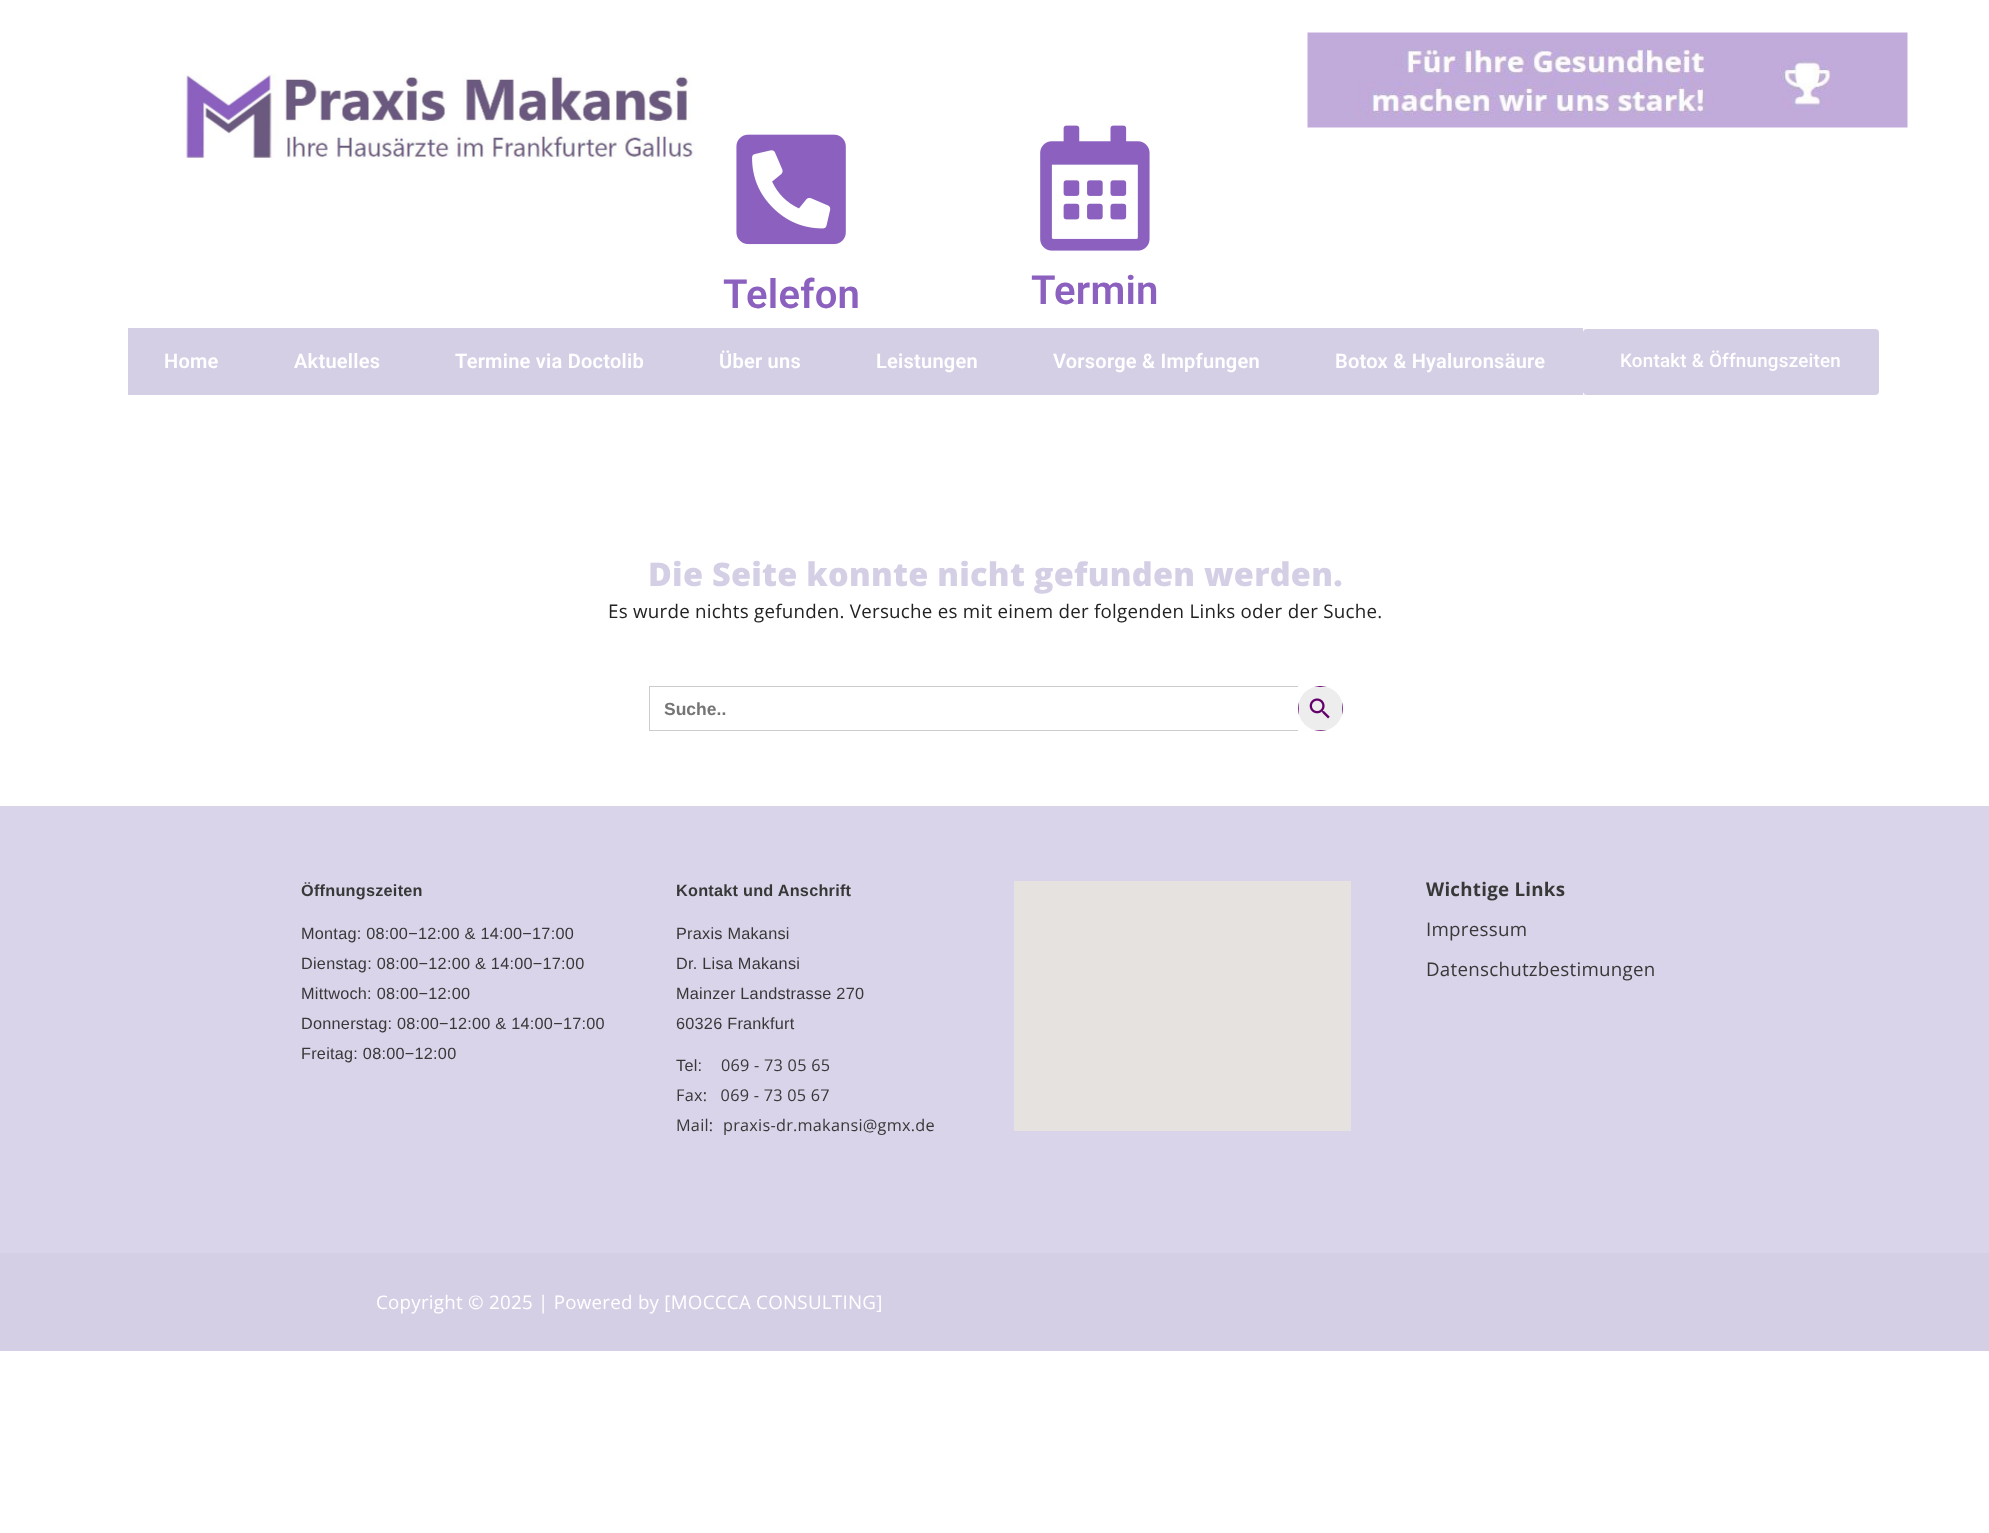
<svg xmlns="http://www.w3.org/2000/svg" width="1989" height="1533">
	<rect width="100%" height="100%" fill="#FFFFFF" />
	<image x="183" y="74" width="513" height="84" href="assets/img1.png" />
	<image x="1307" y="32" width="601" height="96" href="assets/img2.png" />
	<image x="1040" y="125" width="110" height="126" href="assets/img3.png" />
	<g font-family="Roboto" font-size="40" font-weight="600" letter-spacing="0.25" fill="#8B60BF">
		<text x="723" y="308">Telefon</text>
		<text x="1031" y="304">Termin</text>
	</g>
	<image x="736" y="134" width="110" height="111" href="assets/img4.png" />
	<rect x="128" y="328" width="1455" height="67" fill="#D5CFE6" />
	<g font-family="Roboto" font-size="20" font-weight="600" letter-spacing="0.25" fill="#FFFFFF">
		<text x="164" y="368">Home</text>
		<text x="294" y="368">Aktuelles</text>
		<text x="455" y="368">Termine via Doctolib</text>
		<text x="719" y="368">Über uns</text>
		<text x="876" y="368">Leistungen</text>
		<text x="1053" y="368">Vorsorge &amp; Impfungen</text>
		<text x="1335" y="368">Botox &amp; Hyaluronsäure</text>
	</g>
	<rect x="1583" y="329" width="296" height="66" rx="4" fill="#D5CFE6" />
	<text x="1620" y="367" font-family="Roboto" font-size="18.75" font-weight="500" letter-spacing="0.25" fill="#FFFFFF">Kontakt &amp; Öffnungszeiten</text>
	<text x="648" y="586" font-family="Open Sans" font-size="32.5" font-weight="800" letter-spacing="0.25" fill="#D5CFE6">Die Seite konnte nicht gefunden werden.</text>
	<text x="608" y="618" font-family="Open Sans" font-size="18.75" letter-spacing="0.25" fill="#222222">Es wurde nichts gefunden. Versuche es mit einem der folgenden Links oder der Suche.</text>
	<rect x="649" y="686" width="649" height="1" fill="#CCCCCC" />
	<rect x="649" y="730" width="649" height="1" fill="#CCCCCC" />
	<rect x="649" y="686" width="1" height="45" fill="#CCCCCC" />
	<text x="664" y="715" font-family="Liberation Sans" font-size="17.5" font-weight="700" fill="#757575">Suche..</text>
	<circle cx="1320.5" cy="708.5" r="22.5" fill="#EDEDED" />
	<path d="M1320 686L1314 687H1327ZM1342 702C1343 706 1343 711 1342 715ZM1327 730C1323 731 1318 731 1314 730ZM1299 715C1298 711 1298 706 1299 702Z" fill="#64006B" fill-rule="evenodd" />
	<image x="1309" y="698" width="21" height="21" href="assets/img5.png" />
	<rect x="0" y="806" width="1989" height="447" fill="#D9D4E9" />
	<text x="301" y="896" font-family="Liberation Sans" font-size="16.25" font-weight="700" letter-spacing="0.25" fill="#383838">Öffnungszeiten</text>
	<g font-family="Liberation Sans" font-size="16.25" letter-spacing="0.25" fill="#383838">
		<text x="301" y="939">Montag: 08:00−12:00 &amp; 14:00−17:00</text>
		<text x="301" y="969">Dienstag: 08:00−12:00 &amp; 14:00−17:00</text>
		<text x="301" y="999">Mittwoch: 08:00−12:00</text>
		<text x="301" y="1029">Donnerstag: 08:00−12:00 &amp; 14:00−17:00</text>
		<text x="301" y="1059">Freitag: 08:00−12:00</text>
	</g>
	<text x="676" y="896" font-family="Liberation Sans" font-size="16.25" font-weight="700" letter-spacing="0.25" fill="#383838">Kontakt und Anschrift</text>
	<g font-family="Liberation Sans" font-size="16.25" letter-spacing="0.25" fill="#383838">
		<text x="676" y="939">Praxis Makansi</text>
		<text x="676" y="969">Dr. Lisa Makansi</text>
		<text x="676" y="999">Mainzer Landstrasse 270</text>
		<text x="676" y="1029">60326 Frankfurt</text>
		<text x="676" y="1071">Tel:</text>
	</g>
	<g font-family="Open Sans" font-size="16.25" letter-spacing="0.25" fill="#383838">
		<text x="721" y="1071">069 - 73 05 65</text>
		<text x="676" y="1101" xml:space="preserve">Fax:   069 - 73 05 67</text>
		<text x="676" y="1131">Mail:</text>
		<text x="723" y="1131">praxis-dr.makansi@gmx.de</text>
	</g>
	<rect x="1014" y="881" width="337" height="250" fill="#E5E2E0" />
	<text x="1426" y="896" font-family="Open Sans" font-size="18.75" font-weight="700" letter-spacing="0.25" fill="#383838">Wichtige Links</text>
	<g font-family="Open Sans" font-size="18.75" letter-spacing="0.25" fill="#383838">
		<text x="1426" y="936">Impressum</text>
		<text x="1426" y="976">Datenschutzbestimungen</text>
	</g>
	<rect x="0" y="1253" width="1989" height="98" fill="#D5CFE6" />
	<text x="376" y="1309" font-family="Open Sans" font-size="18.75" letter-spacing="0.25" fill="#FFFFFF">Copyright © 2025 | Powered by [MOCCCA CONSULTING]</text>
</svg>
